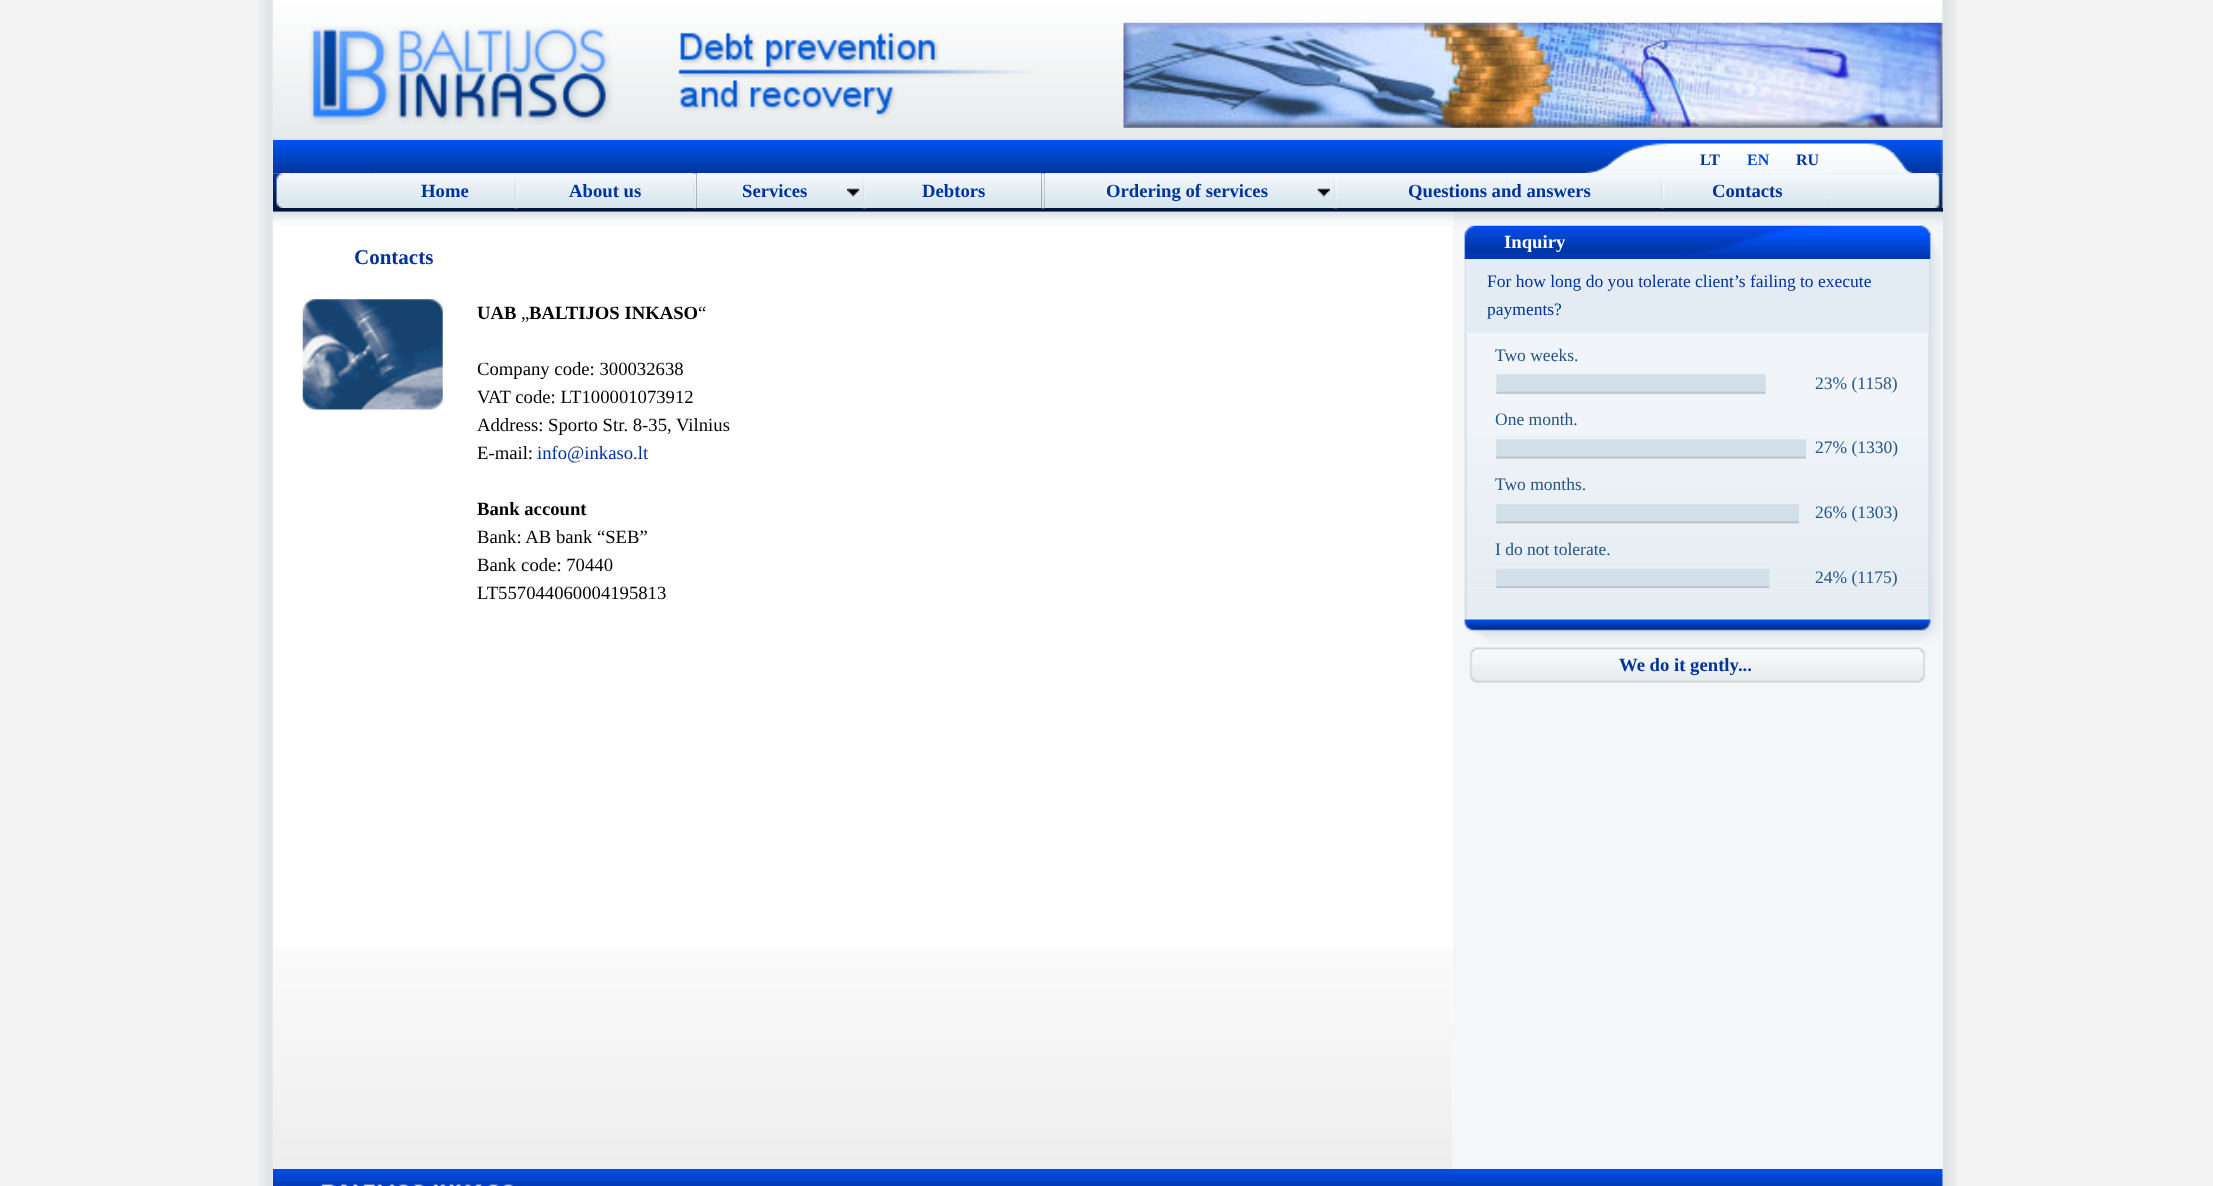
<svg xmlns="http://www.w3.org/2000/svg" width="2213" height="1186">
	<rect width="100%" height="100%" fill="#F3F3F3" />
	<image x="258" y="0" width="15" height="1186" href="assets/img1.png" />
	<image x="273" y="0" width="1670" height="140" href="assets/img2.png" />
	<image x="309" y="26" width="304" height="99" href="assets/img3.png" />
	<image x="678" y="32" width="357" height="86" href="assets/img4.png" />
	<image x="1942" y="0" width="15" height="1186" href="assets/img6.png" />
	<image x="1123" y="22" width="820" height="106" href="assets/img5.png" />
	<image x="273" y="140" width="1670" height="34" href="assets/img7.png" />
	<image x="1578" y="140" width="365" height="34" href="assets/img8.png" />
	<text x="1700" y="165" font-family="Liberation Serif" font-size="16" font-weight="700" fill="#003399">LT</text>
	<text x="1747" y="165" font-family="Liberation Serif" font-size="16" font-weight="700" fill="#0048D5">EN</text>
	<text x="1796" y="165" font-family="Liberation Serif" font-size="16" font-weight="700" fill="#003399">RU</text>
	<image x="273" y="173" width="1670" height="35" href="assets/img9.png" />
	<image x="273" y="173" width="18" height="35" href="assets/img10.png" />
	<rect x="375" y="173" width="1456" height="35" fill="#E6EFF9" />
	<image x="374" y="173" width="141" height="35" href="assets/img11.png" />
	<text x="421" y="197" font-family="Liberation Serif" font-size="18.7" font-weight="700" fill="#003399">Home</text>
	<rect x="273" y="208" width="1670" height="4" fill="#00143C" />
	<image x="514" y="173" width="4" height="36" href="assets/img12.png" />
	<image x="518" y="173" width="175" height="35" href="assets/img13.png" />
	<text x="569" y="197" font-family="Liberation Serif" font-size="18.7" font-weight="700" fill="#003399">About us</text>
	<rect x="693" y="173" width="4" height="35" fill="#000000" />
	<image x="696" y="173" width="167" height="35" href="assets/img15.png" />
	<image x="693" y="173" width="4" height="36" href="assets/img14.png" />
	<text x="742" y="197" font-family="Liberation Serif" font-size="18.7" font-weight="700" fill="#003399">Services</text>
	<image x="847" y="188" width="13" height="9" href="assets/img16.png" />
	<image x="866" y="173" width="175" height="35" href="assets/img18.png" />
	<image x="862" y="173" width="5" height="36" href="assets/img17.png" />
	<text x="922" y="197" font-family="Liberation Serif" font-size="18.7" font-weight="700" fill="#003399">Debtors</text>
	<rect x="1041" y="173" width="4" height="35" fill="#000000" />
	<image x="1044" y="173" width="290" height="35" href="assets/img20.png" />
	<image x="1041" y="173" width="4" height="36" href="assets/img19.png" />
	<text x="1106" y="197" font-family="Liberation Serif" font-size="18.7" font-weight="700" fill="#003399">Ordering of services</text>
	<image x="1317" y="188" width="13" height="9" href="assets/img21.png" />
	<image x="1333" y="173" width="4" height="36" href="assets/img12.png" />
	<image x="1337" y="173" width="324" height="35" href="assets/img22.png" />
	<text x="1408" y="197" font-family="Liberation Serif" font-size="18.7" font-weight="700" fill="#003399">Questions and answers</text>
	<image x="1664" y="173" width="167" height="35" href="assets/img23.png" />
	<image x="1660" y="173" width="5" height="36" href="assets/img17.png" />
	<text x="1712" y="197" font-family="Liberation Serif" font-size="18.7" font-weight="700" fill="#003399">Contacts</text>
	<image x="1916" y="173" width="27" height="35" href="assets/img24.png" />
	<image x="273" y="211" width="1670" height="15" href="assets/img25.png" />
	<image x="273" y="211" width="1182" height="1" href="assets/img26.png" />
	<image x="1454" y="211" width="489" height="15" href="assets/img27.png" />
	<rect x="273" y="226" width="1180" height="943" fill="#FFFFFF" />
	<image x="273" y="948" width="1180" height="221" href="assets/img28.png" />
	<text x="354" y="264" font-family="Liberation Serif" font-size="21" font-weight="700" fill="#003399">Contacts</text>
	<image x="302" y="299" width="141" height="111" href="assets/img29.png" />
	<g font-family="Liberation Serif" font-size="18.7" font-weight="700" fill="#000000">
		<text x="477" y="319">UAB</text>
		<text x="529" y="319">BALTIJOS INKASO</text>
	</g>
	<g font-family="Liberation Serif" font-size="18.7" fill="#000000">
		<text x="698" y="319">“</text>
		<text x="521" y="319">„</text>
		<text x="477" y="375">Company code: 300032638</text>
		<text x="477" y="403">VAT code: LT100001073912</text>
		<text x="477" y="431">Address: Sporto Str. 8-35, Vilnius</text>
		<text x="477" y="459">E-mail:</text>
	</g>
	<text x="537" y="459" font-family="Liberation Serif" font-size="18.7" fill="#003399">info@inkaso.lt</text>
	<text x="477" y="515" font-family="Liberation Serif" font-size="18.7" font-weight="700" fill="#000000">Bank account</text>
	<g font-family="Liberation Serif" font-size="18.7" fill="#000000">
		<text x="477" y="543">Bank: AB bank “SEB”</text>
		<text x="477" y="571">Bank code: 70440</text>
		<text x="477" y="599">LT557044060004195813</text>
	</g>
	<rect x="1453" y="226" width="490" height="943" fill="#F5F6F8" />
	<image x="1452" y="225" width="489" height="34" href="assets/img30.png" />
	<text x="1504" y="248" font-family="Liberation Serif" font-size="18.7" font-weight="700" fill="#FFFFFF">Inquiry</text>
	<image x="1452" y="259" width="489" height="361" href="assets/img31.png" />
	<rect x="1466" y="259" width="463" height="74" fill="#E3EBF5" />
	<g font-family="Liberation Serif" font-size="17.5" fill="#003399">
		<text x="1487" y="287">For how long do you tolerate client’s failing to execute</text>
		<text x="1487" y="315">payments?</text>
	</g>
	<image x="1466" y="434" width="464" height="158" href="assets/img32.png" />
	<text x="1495" y="361" font-family="Liberation Serif" font-size="17.5" fill="#275485">Two weeks.</text>
	<image x="1496" y="373" width="270" height="21" href="assets/img33.png" />
	<g font-family="Liberation Serif" font-size="17.5" fill="#275485">
		<text x="1815" y="389">23% (1158)</text>
		<text x="1495" y="425">One month.</text>
	</g>
	<image x="1496" y="439" width="310" height="20" href="assets/img34.png" />
	<g font-family="Liberation Serif" font-size="17.5" fill="#275485">
		<text x="1815" y="453">27% (1330)</text>
		<text x="1495" y="490">Two months.</text>
	</g>
	<image x="1496" y="504" width="303" height="20" href="assets/img35.png" />
	<g font-family="Liberation Serif" font-size="17.5" fill="#275485">
		<text x="1815" y="518">26% (1303)</text>
		<text x="1495" y="555">I do not tolerate.</text>
	</g>
	<image x="1496" y="567" width="274" height="21" href="assets/img36.png" />
	<text x="1815" y="583" font-family="Liberation Serif" font-size="17.5" fill="#275485">24% (1175)</text>
	<image x="1465" y="592" width="469" height="28" href="assets/img37.png" />
	<image x="1452" y="619" width="489" height="25" href="assets/img38.png" />
	<image x="1470" y="647" width="455" height="36" href="assets/img39.png" />
	<text x="1619" y="671" font-family="Liberation Serif" font-size="18.7" font-weight="700" fill="#003399">We do it gently...</text>
	<image x="273" y="1169" width="1670" height="17" href="assets/img40.png" />
	<image x="321" y="1184" width="193" height="2" href="assets/img41.png" />
</svg>
